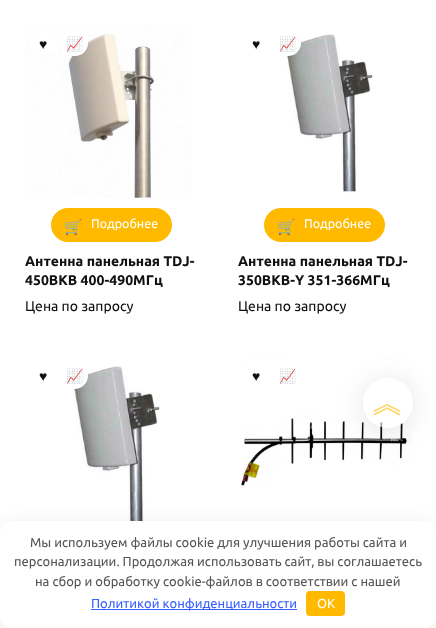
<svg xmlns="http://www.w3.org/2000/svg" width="436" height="628">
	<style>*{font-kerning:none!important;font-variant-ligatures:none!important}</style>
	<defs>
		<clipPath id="clip1"><path d="M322 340H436V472H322ZM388 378C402 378 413 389 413 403C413 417 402 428 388 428C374 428 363 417 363 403C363 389 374 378 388 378Z" clip-rule="evenodd" /></clipPath>
	</defs>
	<rect width="100%" height="100%" fill="#FFFFFF" />
	<image x="25" y="25" width="167" height="173" href="assets/img1.png" />
	<rect x="30" y="30" width="27" height="26" rx="13" fill="#FFFFFF" />
	<text x="39" y="49" font-family="Liberation Serif" font-size="14" fill="#111111">♥</text>
	<rect x="61" y="30" width="27" height="26" rx="13" fill="#FFFFFF" />
	<text x="66" y="49" font-family="Noto Color Emoji" font-size="14" fill="#111111">📈</text>
	<rect x="51" y="208" width="121" height="34" rx="17" fill="#FFBA00" />
	<text x="64" y="232" font-family="Noto Color Emoji" font-size="15" fill="#FFFFFF">🛒</text>
	<text x="91" y="228" font-family="Ubuntu" font-size="12.5" fill="#FFFFFF">Подробнее</text>
	<g font-family="Ubuntu" font-size="14" font-weight="700" fill="#111111">
		<text x="25" y="266">Антенна панельная TDJ-</text>
		<text x="25" y="285">450BKB 400-490МГц</text>
	</g>
	<text x="25" y="311" font-family="Ubuntu" font-size="14" fill="#111111">Цена по запросу</text>
	<text x="252" y="49" font-family="Liberation Serif" font-size="14" fill="#111111">♥</text>
	<image x="286" y="34" width="87" height="159" href="assets/img2.png" />
	<rect x="274" y="30" width="27" height="26" rx="13" fill="#FFFFFF" />
	<text x="279" y="49" font-family="Noto Color Emoji" font-size="14" fill="#111111">📈</text>
	<rect x="264" y="208" width="121" height="34" rx="17" fill="#FFBA00" />
	<text x="277" y="232" font-family="Noto Color Emoji" font-size="15" fill="#FFFFFF">🛒</text>
	<text x="304" y="228" font-family="Ubuntu" font-size="12.5" fill="#FFFFFF">Подробнее</text>
	<g font-family="Ubuntu" font-size="14" font-weight="700" fill="#111111">
		<text x="238" y="266">Антенна панельная TDJ-</text>
		<text x="238" y="285">350BKB-Y 351-366МГц</text>
	</g>
	<text x="238" y="311" font-family="Ubuntu" font-size="14" fill="#111111">Цена по запросу</text>
	<text x="39" y="381" font-family="Liberation Serif" font-size="14" fill="#111111">♥</text>
	<image x="73" y="366" width="87" height="155" href="assets/img3.png" />
	<circle cx="74.5" cy="375.5" r="13.5" fill="#FFFFFF" />
	<text x="66" y="381" font-family="Noto Color Emoji" font-size="14" fill="#111111">📈</text>
	<image x="241" y="357" width="170" height="129" href="assets/img4.png" />
	<text x="252" y="381" font-family="Liberation Serif" font-size="14" fill="#111111">♥</text>
	<text x="279" y="381" font-family="Noto Color Emoji" font-size="14" fill="#111111">📈</text>
	<g clip-path="url(#clip1)">
		<rect x="368" y="386" width="40" height="40" rx="20" fill="#000000" fill-opacity="0.18" filter="blur(15px)" />
	</g>
	<circle cx="388" cy="403" r="25" fill="#FFFFFF" fill-opacity="0.6" />
	<text x="372" y="413" font-family="WenQuanYi Zen Hei" font-size="32" font-weight="500" fill="#FFD666">︽</text>
	<rect x="5" y="529" width="426" height="97" rx="7" fill="#292C38" fill-opacity="0.2" filter="blur(10px)" />
	<rect x="0" y="521" width="436" height="107" rx="12" fill="#FFFFFF" />
	<g font-family="Ubuntu" font-size="13" fill="#555555">
		<text x="30" y="547">Мы используем файлы cookie для улучшения работы сайта и</text>
		<text x="14" y="566">персонализации. Продолжая использовать сайт, вы соглашаетесь</text>
		<text x="35" y="586">на сбор и обработку cookie-файлов в соответствии с нашей</text>
	</g>
	<rect x="91" y="609" width="206" height="1" fill="#3960FF" />
	<text x="91" y="608" font-family="Ubuntu" font-size="13" fill="#3960FF">Политикой конфиденциальности</text>
	<rect x="306" y="591" width="39" height="25" rx="4" fill="#FFBA00" />
	<text x="317" y="608" font-family="Ubuntu" font-size="13" fill="#FFFFFF">OK</text>
</svg>
